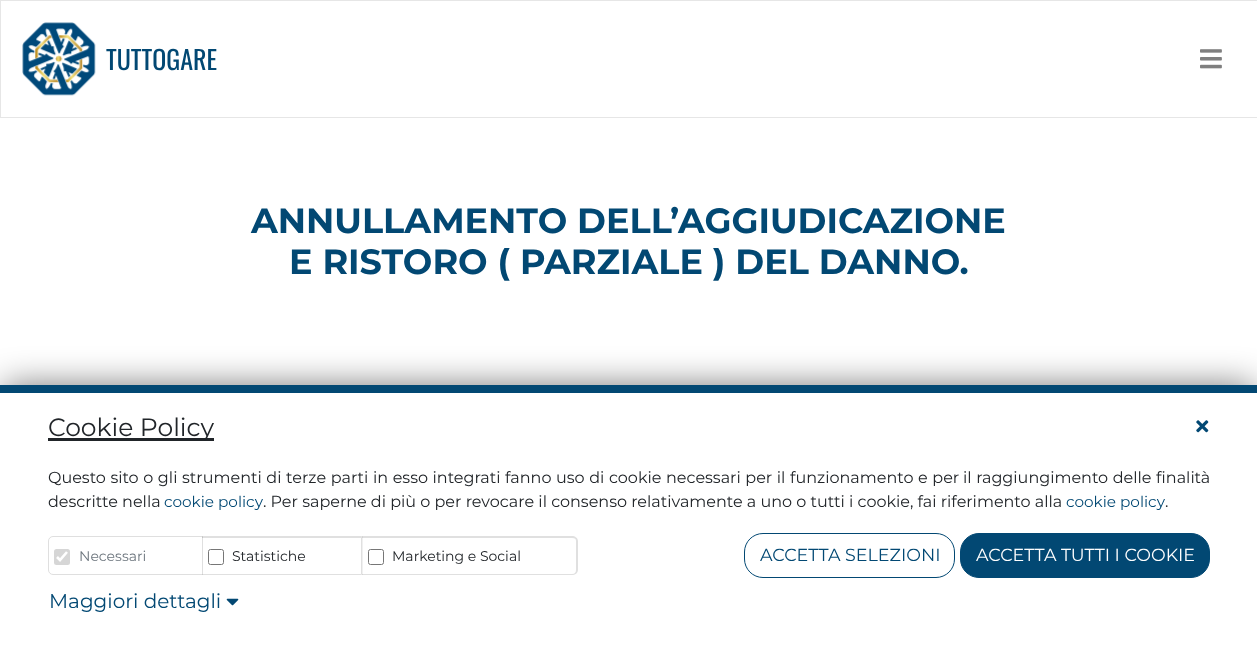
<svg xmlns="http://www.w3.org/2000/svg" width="1257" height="646">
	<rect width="100%" height="100%" fill="#FFFFFF" />
	<rect x="0.5" y="0.5" width="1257" height="117" fill="none" stroke="#E6E6E6" />
	<image x="22" y="22" width="74" height="74" href="assets/img1.png" />
	<text x="106" y="70" font-family="Oswald" font-size="26" fill="#024873">TUTTOGARE</text>
	<image x="1200" y="49" width="22" height="20" href="assets/img2.png" />
	<g font-family="Montserrat" font-size="35" font-weight="700" fill="#024873">
		<text x="251" y="233">ANNULLAMENTO DELL’AGGIUDICAZIONE</text>
		<text x="289" y="274">E RISTORO ( PARZIALE ) DEL DANNO.</text>
	</g>
	<rect x="4" y="386" width="1250" height="254" fill="#000000" fill-opacity="0.55" filter="blur(17.5px)" />
	<rect x="0" y="393" width="1257" height="253" fill="#FFFFFF" />
	<rect x="0" y="385" width="1257" height="8" fill="#024873" />
	<rect x="48" y="438" width="166" height="3" fill="#212529" />
	<text x="48" y="436" font-family="Montserrat" font-size="25" fill="#212529">Cookie Policy</text>
	<image x="1196" y="420" width="13" height="13" href="assets/img3.png" />
	<g font-family="Montserrat" font-size="16" fill="#212529">
		<text x="48" y="483" word-spacing="0.4">Questo sito o gli strumenti di terze parti in esso integrati fanno uso di cookie necessari per il funzionamento e per</text>
		<text x="963" y="483" word-spacing="0.4">il raggiungimento delle finalità</text>
		<text x="48" y="507">descritte nella</text>
	</g>
	<text x="164" y="507" font-family="Montserrat" font-size="15.25" fill="#024873">cookie policy</text>
	<text x="263" y="507" font-family="Montserrat" font-size="16" fill="#212529">. Per saperne di più o per revocare il consenso relativamente a uno o tutti i cookie, fai riferimento alla</text>
	<text x="1066" y="507" font-family="Montserrat" font-size="15.25" fill="#024873">cookie policy</text>
	<text x="1165" y="507" font-family="Montserrat" font-size="16" fill="#212529">.</text>
	<path d="M53 536.5H202.5V574.5H53C50.5 574.5 48.5 572.5 48.5 570V541C48.5 538.5 50.5 536.5 53 536.5Z" fill="none" stroke="#DFDFDF" />
	<rect x="54" y="549" width="16" height="16" rx="2.5" fill="#D6D6D6" />
	<path d="M57 557L60 560L67 552" fill="none" stroke="#FFFFFF" stroke-width="2.6" />
	<text x="79" y="561" font-family="Montserrat" font-size="14" fill="#6C757D">Necessari</text>
	<path d="M202 536H362L361 538H202Z" fill="#000000" fill-opacity="0.12" />
	<path d="M362.5 536V575L361 574V537.5Z" fill="#000000" fill-opacity="0.12" />
	<path d="M362 575H202V574H361Z" fill="#000000" fill-opacity="0.12" />
	<rect x="208.5" y="549.5" width="15" height="15" rx="2" fill="none" stroke="#767676" />
	<text x="232" y="561" font-family="Montserrat" font-size="14" fill="#212529">Statistiche</text>
	<path d="M362 536H572C575 536 578 538 578 541V570C578 573 575 575 572 575H362ZM362 538H572C575 538 576 539 576 541V570C576 572 575 574 572 574H362Z" fill="#000000" fill-opacity="0.12" fill-rule="evenodd" />
	<rect x="368.5" y="549.5" width="15" height="15" rx="2" fill="none" stroke="#767676" />
	<text x="392" y="561" font-family="Montserrat" font-size="14" fill="#212529">Marketing e Social</text>
	<rect x="744.5" y="533.5" width="210" height="44" rx="18.5" fill="none" stroke="#024873" />
	<text x="760" y="561" font-family="Montserrat" font-size="17.5" fill="#024873">ACCETTA SELEZIONI</text>
	<rect x="960.5" y="533.5" width="249" height="44" rx="18.5" fill="#024873" stroke="#024873" />
	<text x="976" y="561" font-family="Montserrat" font-size="17.5" fill="#FFFFFF">ACCETTA TUTTI I COOKIE</text>
	<text x="49" y="608" font-family="Montserrat" font-size="20" fill="#024873">Maggiori dettagli</text>
	<image x="226" y="598" width="13" height="8" href="assets/img4.png" />
</svg>
